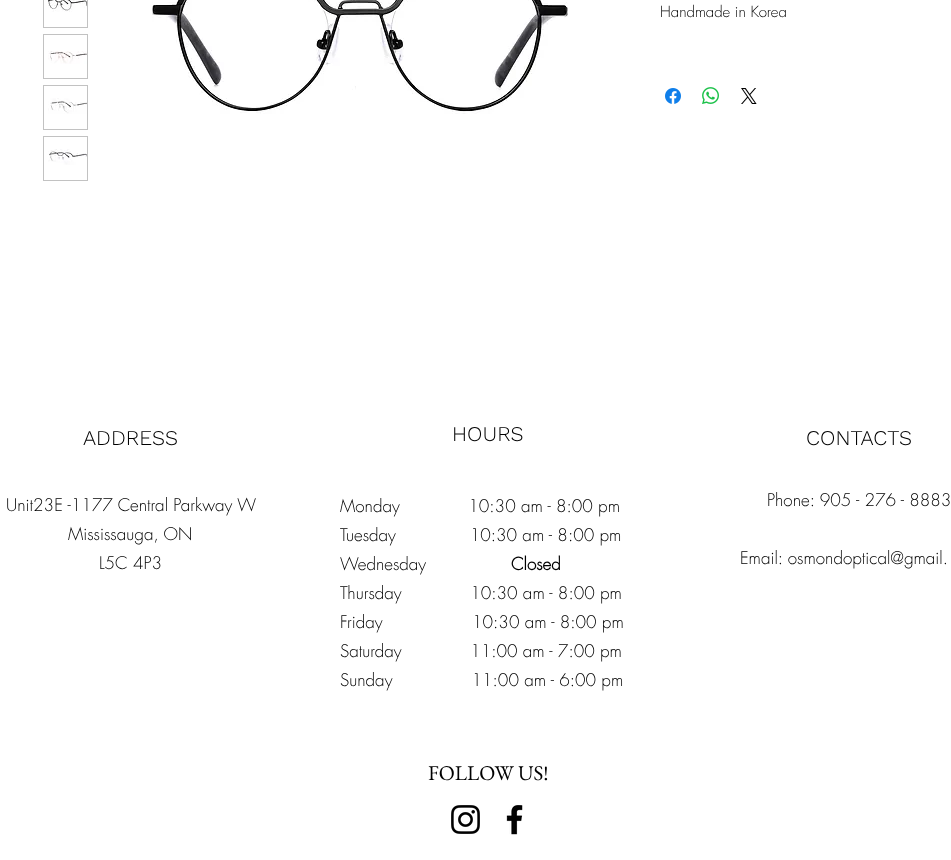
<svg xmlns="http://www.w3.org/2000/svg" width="951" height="860">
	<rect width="100%" height="100%" fill="#FFFFFF" />
	<rect x="43.5" y="-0.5" width="44" height="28" fill="none" stroke="#C2C2C2" />
	<image x="48" y="0" width="39" height="12" href="assets/img1.png" />
	<rect x="43.5" y="34.5" width="44" height="44" fill="none" stroke="#C2C2C2" />
	<image x="48" y="51" width="39" height="13" href="assets/img2.png" />
	<rect x="43.5" y="85.5" width="44" height="44" fill="none" stroke="#C2C2C2" />
	<image x="48" y="98" width="39" height="16" href="assets/img3.png" />
	<rect x="43.5" y="136.5" width="44" height="44" fill="none" stroke="#C2C2C2" />
	<image x="48" y="149" width="39" height="16" href="assets/img4.png" />
	<image x="152" y="0" width="416" height="114" href="assets/img5.png" />
	<text x="660" y="17" font-family="futura" font-size="15" font-weight="300" fill="#000000">Handmade in Korea</text>
	<image x="665" y="88" width="16" height="16" href="assets/img6.png" />
	<image x="702" y="87" width="17" height="17" href="assets/img7.png" />
	<image x="741" y="88" width="16" height="16" href="assets/img8.png" />
	<text x="83" y="445" font-family="Work Sans" font-size="21" font-weight="300" fill="#000000">ADDRESS</text>
	<g font-family="futura" font-size="17" font-weight="300" fill="#000000">
		<text x="6" y="511">Unit23E -1177 Central Parkway W</text>
		<text x="68" y="540">Mississauga, ON</text>
		<text x="99" y="569">L5C 4P3</text>
	</g>
	<g font-family="Work Sans" font-size="21" font-weight="300" fill="#000000">
		<text x="452" y="441">HOURS</text>
		<text x="806" y="445">CONTACTS</text>
	</g>
	<g font-family="futura" font-size="17" font-weight="300" fill="#000000">
		<text x="767" y="506">Phone: 905 - 276 - 8883</text>
		<text x="740" y="564">Email: osmondoptical@gmail.</text>
		<text x="340" y="512" xml:space="preserve">Monday             10:30 am - 8:00 pm</text>
		<text x="340" y="541" xml:space="preserve">Tuesday              10:30 am - 8:00 pm</text>
		<text x="340" y="570">Wednesday</text>
	</g>
	<text x="511" y="570" font-family="futura" font-size="17" font-weight="700" fill="#000000">Closed</text>
	<g font-family="futura" font-size="17" font-weight="300" fill="#000000">
		<text x="340" y="599" xml:space="preserve">Thursday             10:30 am - 8:00 pm</text>
		<text x="340" y="628">Friday</text>
		<text x="472" y="628">10:30 am - 8:00 pm</text>
		<text x="340" y="657" xml:space="preserve">Saturday             11:00 am - 7:00 pm</text>
		<text x="340" y="686" xml:space="preserve">Sunday               11:00 am - 6:00 pm</text>
	</g>
	<text x="428" y="780" font-family="EB Garamond" font-size="21" fill="#000000">FOLLOW US!</text>
	<image x="451" y="805" width="29" height="29" href="assets/img9.png" />
	<image x="506" y="805" width="17" height="30" href="assets/img10.png" />
</svg>
